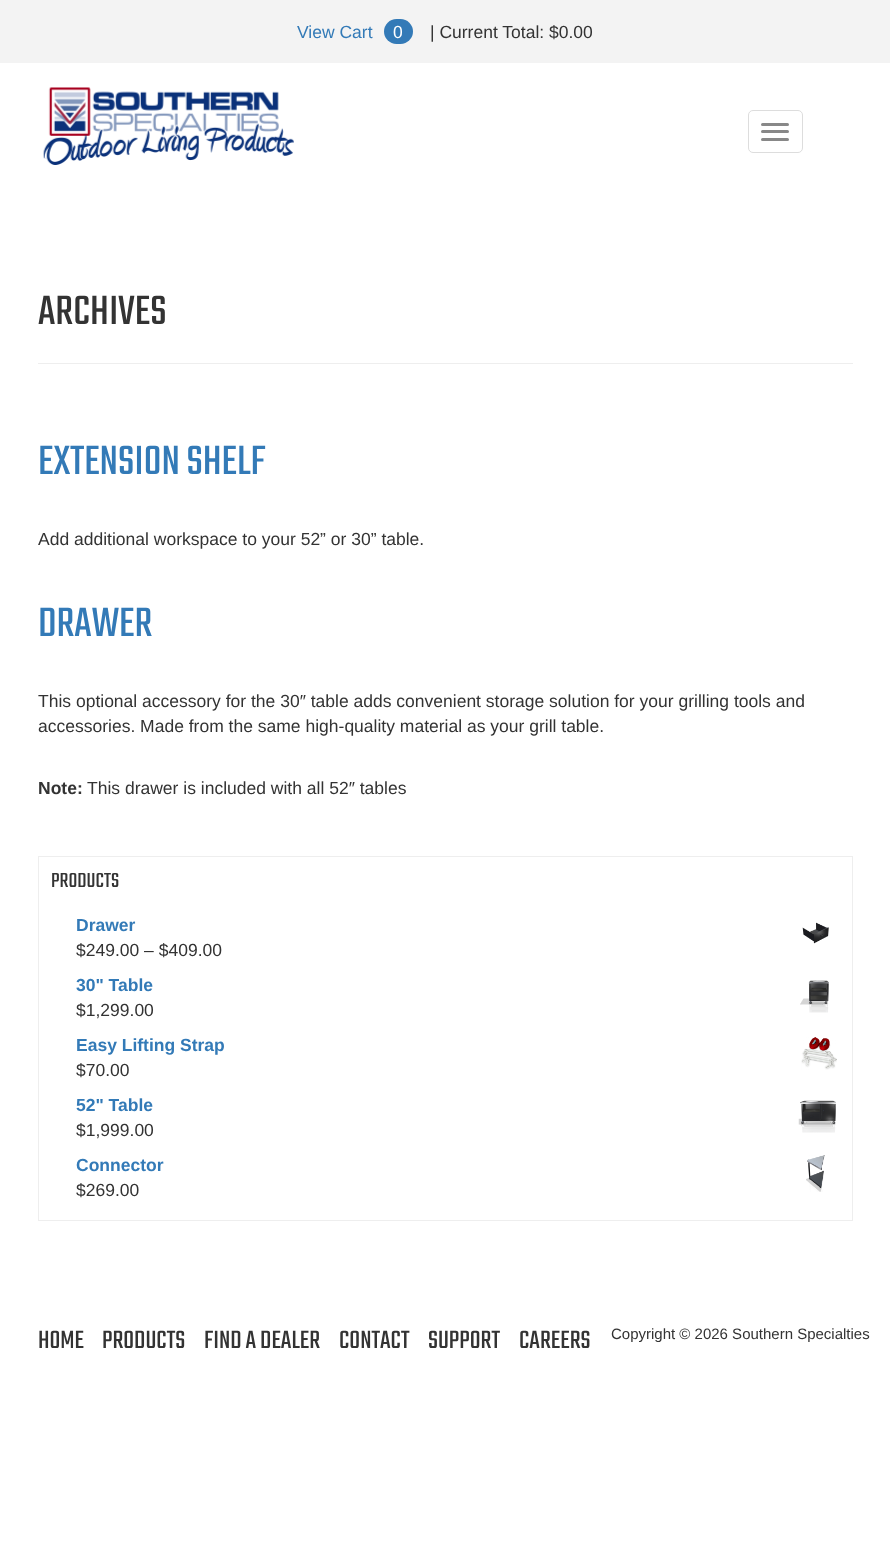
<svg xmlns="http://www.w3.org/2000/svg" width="890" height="1565">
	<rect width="100%" height="100%" fill="#FFFFFF" />
	<rect x="0" y="0" width="890" height="63" fill="#F3F3F3" />
	<text x="297" y="38" font-family="Liberation Sans" font-size="17.5" fill="#337AB7">View Cart</text>
	<rect x="384" y="19" width="29" height="25" rx="12.5" fill="#337AB7" />
	<text x="393" y="38" font-family="Liberation Sans" font-size="17.5" fill="#FFFFFF">0</text>
	<text x="430" y="38" font-family="Liberation Sans" font-size="17.5" fill="#333333">| Current Total: $0.00</text>
	<image x="43" y="87" width="251" height="78" href="assets/img1.png" />
	<rect x="748.5" y="110.5" width="54" height="42" rx="4.5" fill="none" stroke="#DDDDDD" />
	<rect x="761" y="123" width="28" height="3" rx="1.5" fill="#888888" />
	<rect x="761" y="130" width="28" height="3" rx="1.5" fill="#888888" />
	<rect x="761" y="138" width="28" height="3" rx="1.5" fill="#888888" />
	<rect x="38" y="363" width="815" height="1" fill="#EEEEEE" />
	<text x="38" y="324" font-family="Teko" font-size="45" font-weight="300" fill="#333333">ARCHIVES</text>
	<text x="38" y="474" font-family="Teko" font-size="45" font-weight="300" fill="#337AB7">EXTENSION SHELF</text>
	<text x="38" y="545" font-family="Liberation Sans" font-size="17.5" fill="#333333">Add additional workspace to your 52” or 30” table.</text>
	<text x="38" y="636" font-family="Teko" font-size="45" font-weight="300" fill="#337AB7">DRAWER</text>
	<g font-family="Liberation Sans" font-size="17.5" fill="#333333">
		<text x="38" y="707">This optional accessory for the 30″ table adds convenient storage solution for your grilling tools and</text>
		<text x="38" y="732">accessories. Made from the same high-quality material as your grill table.</text>
	</g>
	<text x="38" y="794" font-family="Liberation Sans" font-size="17.5" font-weight="700" fill="#333333">Note:</text>
	<text x="87" y="794" font-family="Liberation Sans" font-size="17.5" fill="#333333">This drawer is included with all 52″ tables</text>
	<rect x="38.5" y="856.5" width="814" height="364" fill="none" stroke="#EEEEEE" />
	<text x="51" y="887" font-family="Teko" font-size="22.5" font-weight="300" fill="#333333">PRODUCTS</text>
	<text x="76" y="931" font-family="Liberation Sans" font-size="17.5" font-weight="700" fill="#337AB7">Drawer</text>
	<image x="802" y="922" width="27" height="22" href="assets/img2.png" />
	<text x="76" y="956" font-family="Liberation Sans" font-size="17.5" fill="#333333">$249.00 – $409.00</text>
	<text x="76" y="991" font-family="Liberation Sans" font-size="17.5" font-weight="700" fill="#337AB7">30" Table</text>
	<image x="800" y="980" width="29" height="33" href="assets/img3.png" />
	<text x="76" y="1016" font-family="Liberation Sans" font-size="17.5" fill="#333333">$1,299.00</text>
	<text x="76" y="1051" font-family="Liberation Sans" font-size="17.5" font-weight="700" fill="#337AB7">Easy Lifting Strap</text>
	<image x="801" y="1037" width="36" height="33" href="assets/img4.png" />
	<text x="76" y="1076" font-family="Liberation Sans" font-size="17.5" fill="#333333">$70.00</text>
	<text x="76" y="1111" font-family="Liberation Sans" font-size="17.5" font-weight="700" fill="#337AB7">52" Table</text>
	<image x="798" y="1100" width="38" height="33" href="assets/img5.png" />
	<text x="76" y="1136" font-family="Liberation Sans" font-size="17.5" fill="#333333">$1,999.00</text>
	<text x="76" y="1171" font-family="Liberation Sans" font-size="17.5" font-weight="700" fill="#337AB7">Connector</text>
	<image x="806" y="1155" width="19" height="37" href="assets/img6.png" />
	<text x="76" y="1196" font-family="Liberation Sans" font-size="17.5" fill="#333333">$269.00</text>
	<g font-family="Teko" font-size="27.5" font-weight="300" fill="#333333">
		<text x="38" y="1348">HOME</text>
		<text x="102" y="1348">PRODUCTS</text>
		<text x="204" y="1348">FIND A DEALER</text>
		<text x="339" y="1348">CONTACT</text>
		<text x="428" y="1348">SUPPORT</text>
		<text x="519" y="1348">CAREERS</text>
	</g>
	<text x="611" y="1339" font-family="Liberation Sans" font-size="15" fill="#333333">Copyright © 2026 Southern Specialties</text>
</svg>
